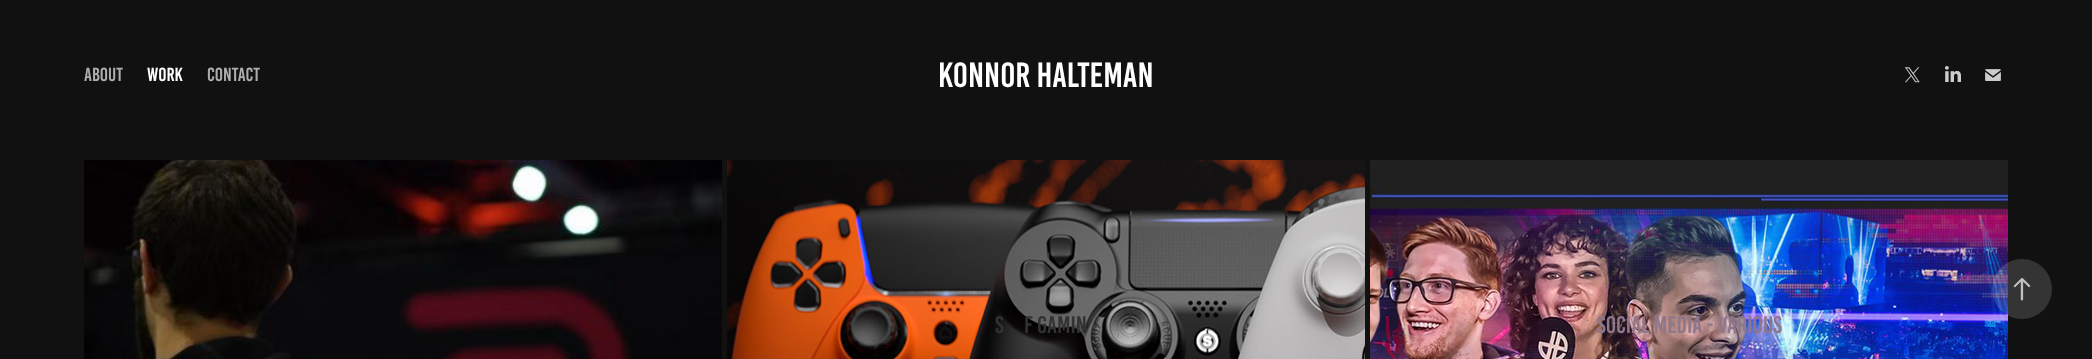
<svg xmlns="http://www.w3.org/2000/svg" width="2092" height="359">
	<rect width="100%" height="100%" fill="#111111" />
	<text x="84" y="81" font-family="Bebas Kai" font-size="19" fill="#AEAEAE">ABOUT</text>
	<text x="147" y="81" font-family="Bebas Kai" font-size="19" fill="#FFFFFF">WORK</text>
	<text x="207" y="81" font-family="Bebas Kai" font-size="19" fill="#AEAEAE">CONTACT</text>
	<text x="938" y="87" font-family="Bebas Kai" font-size="35" fill="#FFFFFF">KONNOR HALTEMAN</text>
	<image x="1905" y="67" width="15" height="16" href="assets/img1.png" />
	<image x="1945" y="66" width="16" height="16" href="assets/img2.png" />
	<image x="1985" y="69" width="16" height="12" href="assets/img3.png" />
	<image x="1370" y="160" width="638" height="199" href="assets/img7.png" />
	<circle cx="2022" cy="289" r="30" fill="#FFFFFF" fill-opacity="0.15" />
	<image x="2013" y="278" width="18" height="23" href="assets/img4.png" />
	<image x="84" y="160" width="638" height="199" href="assets/img5.png" />
	<image x="727" y="160" width="638" height="199" href="assets/img6.png" />
	<g font-family="Bebas Kai" font-size="24" fill="#333233">
		<text x="995" y="333">S</text>
		<text x="1024" y="333">F GAMIN</text>
	</g>
	<text x="1597" y="333" font-family="Bebas Kai" font-size="24" fill="#8F778B">SOCIAL MEDIA - VARIOUS</text>
</svg>
